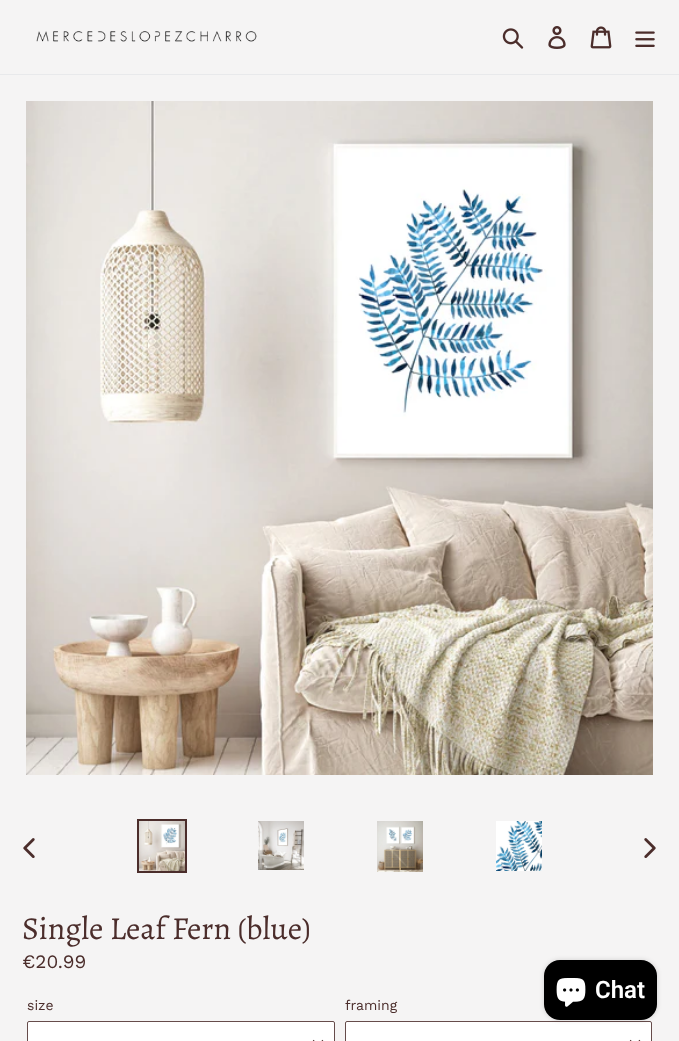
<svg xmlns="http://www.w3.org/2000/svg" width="679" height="1041">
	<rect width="100%" height="100%" fill="#F5F4F4" />
	<rect x="0" y="74" width="679" height="1" fill="#E8E9EB" />
	<image x="36" y="31" width="221" height="11" href="assets/img1.png" />
	<image x="502" y="28" width="22" height="21" href="assets/img2.png" />
	<image x="548" y="26" width="18" height="23" href="assets/img3.png" />
	<image x="590" y="26" width="22" height="23" href="assets/img4.png" />
	<image x="635" y="31" width="20" height="16" href="assets/img5.png" />
	<image x="26" y="101" width="627" height="674" href="assets/img6.png" />
	<image x="23" y="838" width="12" height="20" href="assets/img7.png" />
	<rect x="138" y="820" width="48" height="52" fill="none" stroke="#4B2D2B" stroke-width="2" />
	<image x="139" y="821" width="46" height="50" href="assets/img8.png" />
	<image x="258" y="821" width="46" height="49" href="assets/img9.png" />
	<image x="377" y="821" width="46" height="51" href="assets/img10.png" />
	<image x="496" y="821" width="46" height="50" href="assets/img11.png" />
	<image x="644" y="838" width="12" height="20" href="assets/img12.png" />
	<text x="22" y="939" font-family="Alegreya" font-size="32" fill="#4B2D2B">Single Leaf Fern (blue)</text>
	<text x="22" y="968" font-family="Work Sans" font-size="19" fill="#4B2D2B">€20.99</text>
	<text x="27" y="1010" font-family="Work Sans" font-size="14" fill="#4B2D2B">size</text>
	<rect x="27" y="1021" width="308" height="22" rx="2" fill="#FFFFFF" />
	<image x="312" y="1039" width="12" height="2" href="assets/img13.png" />
	<rect x="27.5" y="1021.5" width="307" height="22" rx="1.5" fill="none" stroke="#664C4B" />
	<text x="345" y="1010" font-family="Work Sans" font-size="14" fill="#4B2D2B">framing</text>
	<rect x="345" y="1021" width="307" height="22" rx="2" fill="#FFFFFF" />
	<image x="629" y="1039" width="12" height="2" href="assets/img13.png" />
	<rect x="345.5" y="1021.5" width="306" height="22" rx="1.5" fill="none" stroke="#664C4B" />
	<rect x="544" y="960" width="113" height="60" rx="16" fill="#000000" fill-opacity="0.15" filter="blur(2.5px)" />
	<rect x="544" y="960" width="113" height="60" rx="16" fill="#000000" />
	<image x="556" y="978" width="30" height="29" href="assets/img14.png" />
	<text x="595" y="998" font-family="Roboto" font-size="24" font-weight="600" fill="#FFFFFF">Chat</text>
</svg>
